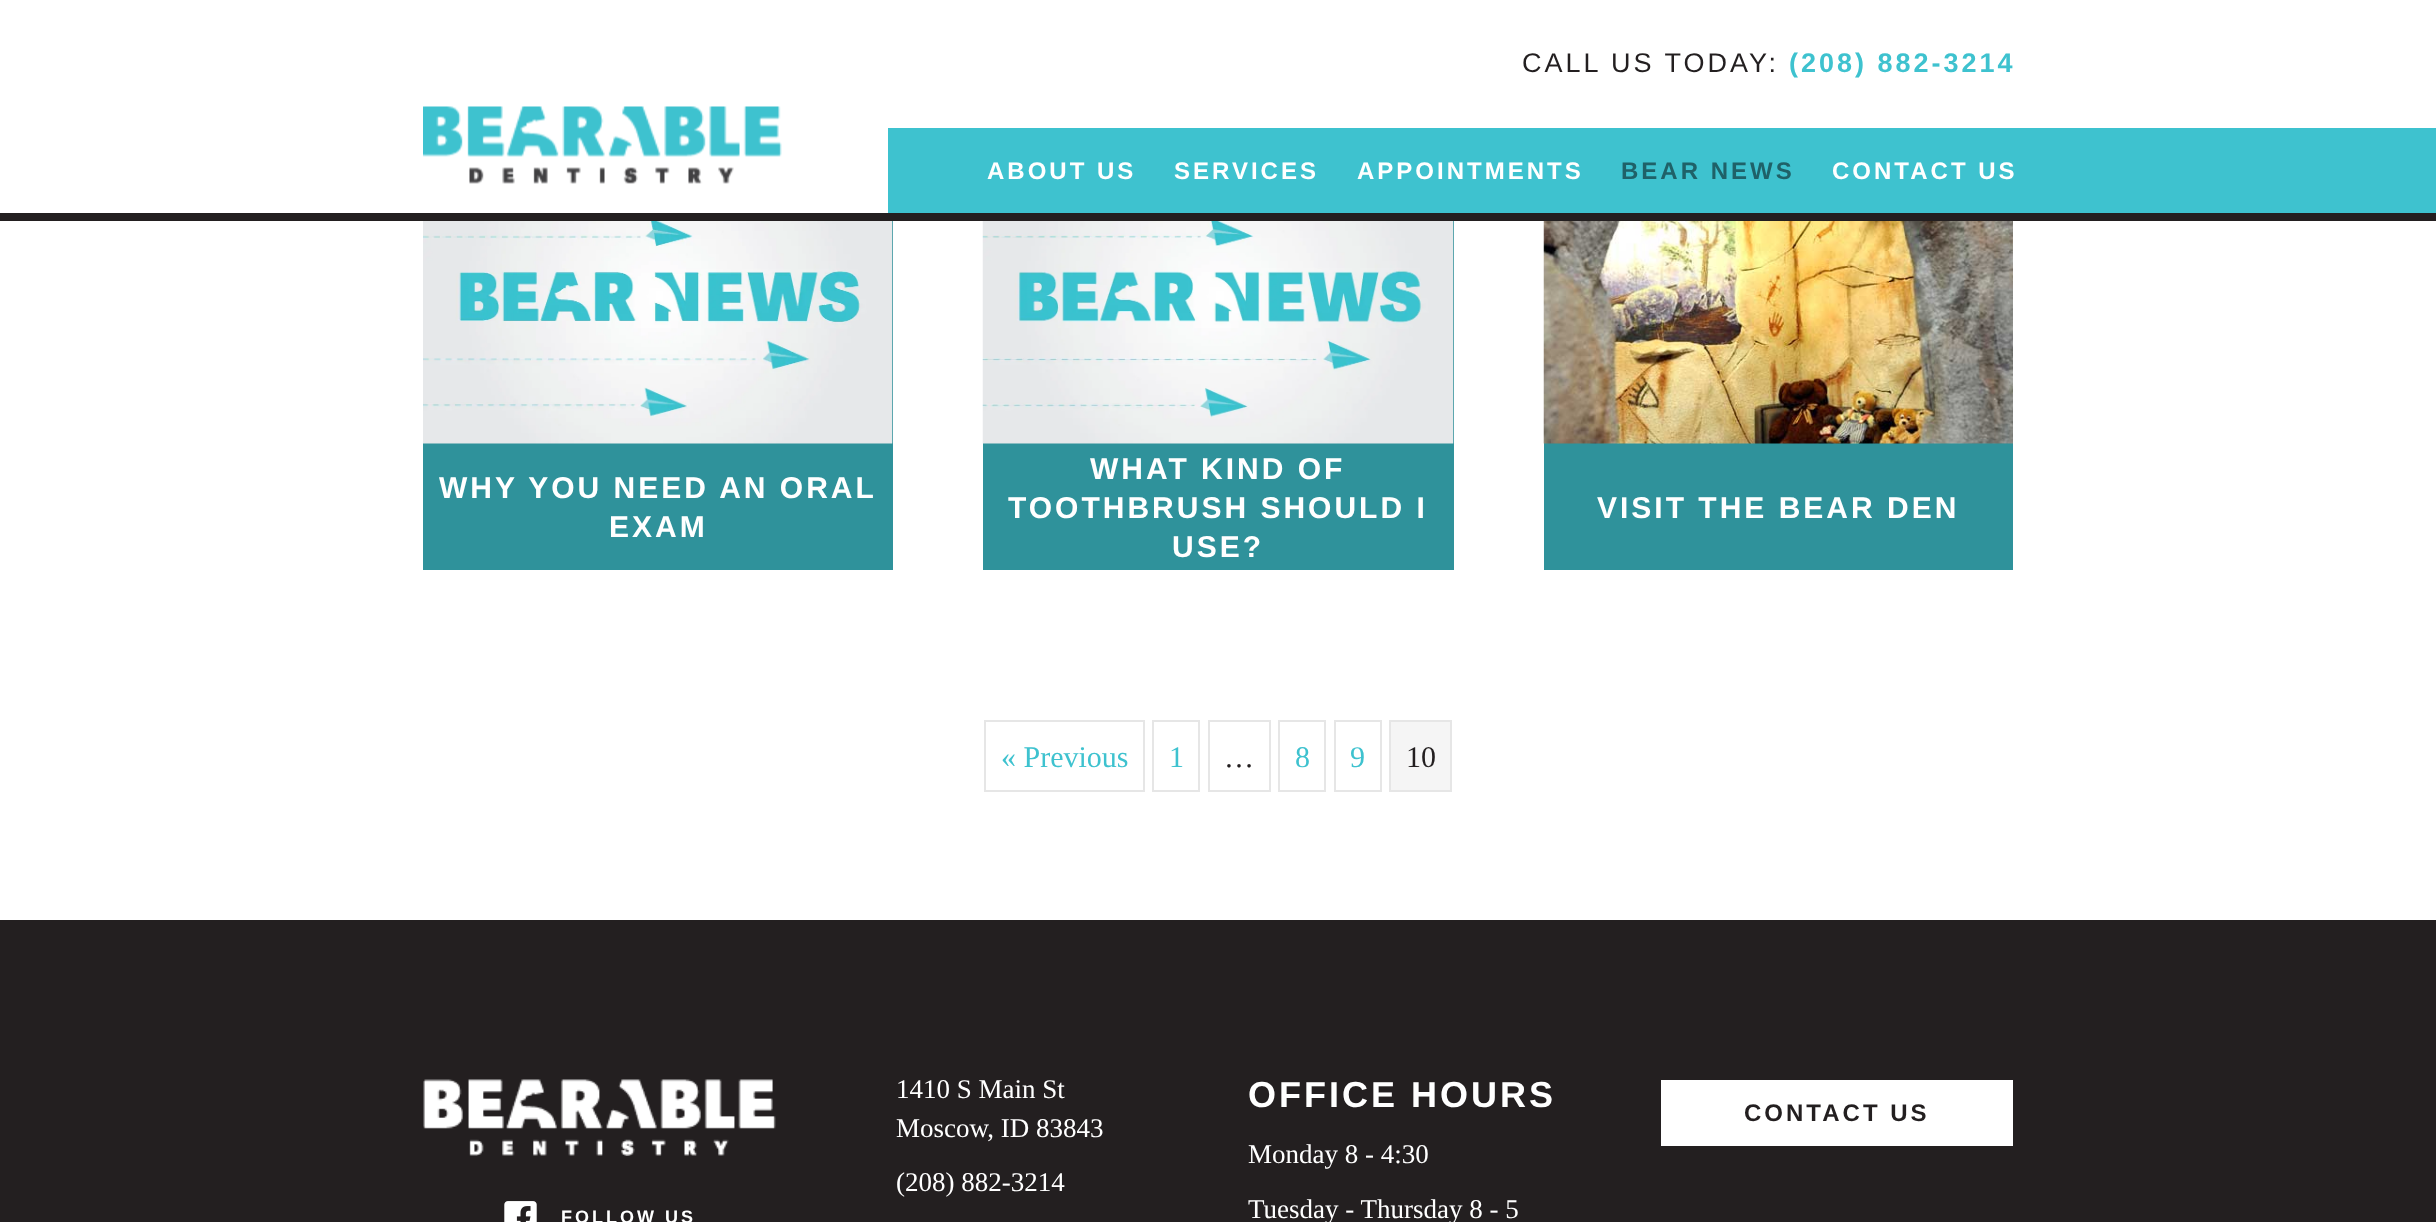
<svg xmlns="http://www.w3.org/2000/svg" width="2436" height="1222">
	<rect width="100%" height="100%" fill="#FFFFFF" />
	<rect x="0" y="213" width="2436" height="8" fill="#231F20" />
	<image x="423" y="106" width="359" height="78" href="assets/img1.png" />
	<text x="1522" y="72" font-family="Liberation Sans" font-size="27" letter-spacing="3" fill="#231F20">CALL US TODAY:</text>
	<text x="1789" y="72" font-family="Liberation Sans" font-size="27" font-weight="700" letter-spacing="3" fill="#3EC2CF">(208) 882-3214</text>
	<rect x="888" y="128" width="1548" height="85" fill="#3EC2CF" />
	<g font-family="Liberation Sans" font-size="24" font-weight="700" letter-spacing="3" fill="#FFFFFF">
		<text x="987" y="179">ABOUT US</text>
		<text x="1174" y="179">SERVICES</text>
		<text x="1357" y="179">APPOINTMENTS</text>
	</g>
	<text x="1621" y="179" font-family="Liberation Sans" font-size="24" font-weight="700" letter-spacing="3" fill="#1F6168">BEAR NEWS</text>
	<text x="1832" y="179" font-family="Liberation Sans" font-size="24" font-weight="700" letter-spacing="3" fill="#FFFFFF">CONTACT US</text>
	<rect x="423" y="221" width="470" height="349" fill="#2F929B" />
	<image x="423" y="221" width="470" height="223" href="assets/img2.png" />
	<g font-family="Liberation Sans" font-size="30" font-weight="700" letter-spacing="3" fill="#FFFFFF">
		<text x="439" y="498">WHY YOU NEED AN ORAL</text>
		<text x="609" y="537">EXAM</text>
	</g>
	<rect x="983" y="221" width="471" height="349" fill="#2F929B" />
	<image x="982" y="221" width="472" height="223" href="assets/img3.png" />
	<g font-family="Liberation Sans" font-size="30" font-weight="700" letter-spacing="3" fill="#FFFFFF">
		<text x="1090" y="479">WHAT KIND OF</text>
		<text x="1008" y="518">TOOTHBRUSH SHOULD I</text>
		<text x="1172" y="557">USE?</text>
	</g>
	<rect x="1544" y="443" width="469" height="127" fill="#2F929B" />
	<image x="1543" y="221" width="470" height="223" href="assets/img4.png" />
	<text x="1597" y="518" font-family="Liberation Sans" font-size="30" font-weight="700" letter-spacing="3" fill="#FFFFFF">VISIT THE BEAR DEN</text>
	<rect x="985" y="721" width="159" height="70" fill="none" stroke="#E6E6E6" stroke-width="2" />
	<text x="1001" y="767" font-family="Liberation Serif" font-size="30" fill="#3EC2CF">« Previous</text>
	<rect x="1153" y="721" width="46" height="70" fill="none" stroke="#E6E6E6" stroke-width="2" />
	<text x="1169" y="767" font-family="Liberation Serif" font-size="30" fill="#3EC2CF">1</text>
	<rect x="1209" y="721" width="61" height="70" fill="none" stroke="#E6E6E6" stroke-width="2" />
	<text x="1224" y="767" font-family="Liberation Serif" font-size="30" fill="#231F20">…</text>
	<rect x="1279" y="721" width="46" height="70" fill="none" stroke="#E6E6E6" stroke-width="2" />
	<text x="1295" y="767" font-family="Liberation Serif" font-size="30" fill="#3EC2CF">8</text>
	<rect x="1335" y="721" width="46" height="70" fill="none" stroke="#E6E6E6" stroke-width="2" />
	<text x="1350" y="767" font-family="Liberation Serif" font-size="30" fill="#3EC2CF">9</text>
	<rect x="1390" y="721" width="61" height="70" fill="#F5F5F5" stroke="#E6E6E6" stroke-width="2" />
	<text x="1406" y="767" font-family="Liberation Serif" font-size="30" fill="#231F20">10</text>
	<rect x="0" y="920" width="2436" height="302" fill="#231F20" />
	<g font-family="Liberation Serif" font-size="27" fill="#FFFFFF">
		<text x="896" y="1098">1410 S Main St</text>
		<text x="896" y="1137">Moscow, ID 83843</text>
		<text x="896" y="1191">(208) 882-3214</text>
	</g>
	<text x="1248" y="1107" font-family="Liberation Sans" font-size="36" font-weight="700" letter-spacing="3" fill="#FFFFFF">OFFICE HOURS</text>
	<g font-family="Liberation Serif" font-size="27" fill="#FFFFFF">
		<text x="1248" y="1163">Monday 8 - 4:30</text>
		<text x="1248" y="1218">Tuesday - Thursday 8 - 5</text>
	</g>
	<rect x="1661" y="1080" width="352" height="66" fill="#FFFFFF" />
	<text x="1744" y="1121" font-family="Liberation Sans" font-size="24" font-weight="700" letter-spacing="3" fill="#231F20">CONTACT US</text>
	<image x="423" y="1079" width="353" height="77" href="assets/img5.png" />
	<image x="504" y="1201" width="33" height="21" href="assets/img6.png" />
	<text x="561" y="1223" font-family="Liberation Sans" font-size="18" font-weight="700" letter-spacing="3" fill="#FFFFFF">FOLLOW US</text>
</svg>
